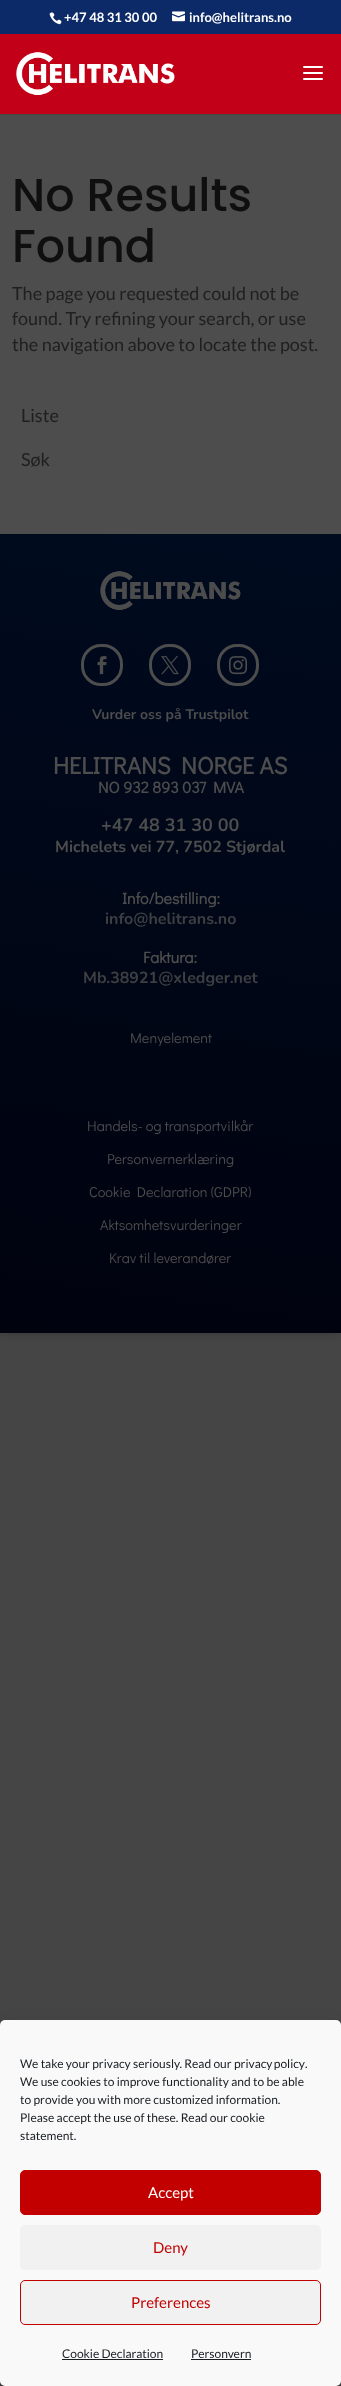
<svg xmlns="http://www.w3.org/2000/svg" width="341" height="2386">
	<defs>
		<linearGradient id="g1" gradientUnits="userSpaceOnUse" x1="229" y1="518" x2="112" y2="1349"><stop offset="0" stop-color="#000B1F" /><stop offset="1" stop-color="#00020E" /></linearGradient>
	</defs>
	<rect width="100%" height="100%" fill="#454545" />
	<rect x="0" y="0" width="341" height="1333" fill="#000000" fill-opacity="0.2" filter="blur(5px)" />
	<rect x="0" y="0" width="341" height="34" fill="#0D2A68" />
	<image x="49" y="12" width="13" height="13" href="assets/img1.png" />
	<text x="64" y="22" font-family="Lato" font-size="13" font-weight="700" fill="#FFFFFF">+47 48 31 30 00</text>
	<image x="172" y="11" width="13" height="11" href="assets/img2.png" />
	<text x="189" y="22" font-family="Lato" font-size="13" font-weight="700" fill="#FFFFFF">info@helitrans.no</text>
	<rect x="0" y="114" width="341" height="1" fill="#454545" />
	<rect x="0" y="34" width="341" height="80" fill="#C20018" />
	<image x="16" y="52" width="159" height="43" href="assets/img3.png" />
	<image x="303" y="66" width="20" height="14" href="assets/img4.png" />
	<rect x="0" y="115" width="341" height="419" fill="#4D4D4D" />
	<g font-family="Poppins" font-size="46" font-weight="500" fill="#0F0F0F">
		<text x="12" y="211">No Results</text>
		<text x="12" y="262">Found</text>
	</g>
	<g font-family="Lato" font-size="18" fill="#1F1F1F">
		<text x="12" y="300">The page you requested could not be</text>
		<text x="12" y="325">found. Try refining your search, or use</text>
		<text x="12" y="351">the navigation above to locate the post.</text>
		<text x="21" y="422">Liste</text>
		<text x="21" y="466">Søk</text>
	</g>
	<rect x="0" y="534" width="341" height="799" fill="url(#g1)" />
	<image x="100" y="571" width="141" height="39" href="assets/img5.png" />
	<rect x="82.5" y="645.5" width="39" height="39" rx="18.5" fill="none" stroke="#4D4D4D" stroke-width="3" />
	<image x="97" y="656" width="10" height="19" href="assets/img6.png" />
	<rect x="150.5" y="645.5" width="39" height="39" rx="18.5" fill="none" stroke="#4D4D4D" stroke-width="3" />
	<image x="161" y="656" width="18" height="19" href="assets/img7.png" />
	<rect x="218.5" y="645.5" width="39" height="39" rx="18.5" fill="none" stroke="#4D4D4D" stroke-width="3" />
	<image x="229" y="656" width="18" height="19" href="assets/img8.png" />
	<text x="92" y="719" font-family="Nunito" font-size="14" font-weight="200" fill="#4D4D4D">Vurder oss på Trustpilot</text>
	<text x="53" y="774" font-family="Didact Gothic" font-size="24" font-weight="700" fill="#4D4D4D">HELITRANS NORGE AS</text>
	<text x="98" y="793" font-family="Didact Gothic" font-size="16" font-weight="700" fill="#4D4D4D">NO 932 893 037 MVA</text>
	<text x="101" y="831" font-family="Nunito" font-size="18" font-weight="200" fill="#4D4D4D">+47 48 31 30 00</text>
	<text x="55" y="852" font-family="Nunito" font-size="16" font-weight="200" fill="#4D4D4D">Michelets vei 77, 7502 Stjørdal</text>
	<text x="122" y="904" font-family="Didact Gothic" font-size="16" font-weight="700" fill="#4D4D4D">Info/bestilling:</text>
	<text x="105" y="924" font-family="Nunito" font-size="16" font-weight="200" fill="#3D3F42">info@helitrans.no</text>
	<text x="143" y="963" font-family="Didact Gothic" font-size="16" font-weight="700" fill="#4D4D4D">Faktura:</text>
	<text x="83" y="983" font-family="Nunito" font-size="16" font-weight="200" fill="#3D3F42">Mb.38921@xledger.net</text>
	<g font-family="Didact Gothic" font-size="14.4" fill="#4D4D4D">
		<text x="130" y="1043">Menyelement</text>
		<text x="87" y="1131">Handels- og transportvilkår</text>
		<text x="107" y="1164">Personvernerklæring</text>
		<text x="89" y="1197">Cookie Declaration (GDPR)</text>
		<text x="100" y="1230">Aktsomhetsvurderinger</text>
		<text x="109" y="1263">Krav til leverandører</text>
	</g>
	<rect x="0" y="2026" width="341" height="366" rx="5" fill="#000000" fill-opacity="0.23" filter="blur(3px)" />
	<rect x="0" y="2030" width="341" height="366" rx="5" fill="#000000" fill-opacity="0.19" filter="blur(10px)" />
	<rect x="0" y="2020" width="341" height="366" rx="5" fill="#F9F9F9" />
	<g font-family="Lato" font-size="12" fill="#191E23">
		<text x="20" y="2068">We take your privacy seriously. Read our</text>
		<text x="234" y="2068" word-spacing="-1">privacy policy</text>
		<text x="305" y="2068">.</text>
		<text x="20" y="2086">We use cookies to improve functionality and to be able</text>
		<text x="20" y="2104">to provide you with more customized information.</text>
		<text x="20" y="2122">Please accept the use of these. Read our cookie</text>
		<text x="20" y="2140">statement.</text>
	</g>
	<rect x="20.5" y="2170.5" width="300" height="44" rx="4.5" fill="#C20000" stroke="#C20000" />
	<text x="148" y="2198" font-family="Lato" font-size="15" fill="#FFFFFF">Accept</text>
	<rect x="20" y="2225" width="301" height="45" rx="5" fill="#F1F1F1" />
	<text x="153" y="2253" font-family="Lato" font-size="15" fill="#C20000">Deny</text>
	<rect x="20.5" y="2280.5" width="300" height="44" rx="4.5" fill="#F1F1F1" stroke="#C20000" />
	<text x="131" y="2308" font-family="Lato" font-size="15" fill="#C20000">Preferences</text>
	<text x="62" y="2358" font-family="Lato" font-size="12" fill="#191E23">Cookie Declaration</text>
	<rect x="62" y="2359" width="101" height="1" fill="#191E23" />
	<text x="191" y="2358" font-family="Lato" font-size="12" fill="#191E23">Personvern</text>
	<rect x="191" y="2359" width="60" height="1" fill="#191E23" />
</svg>
